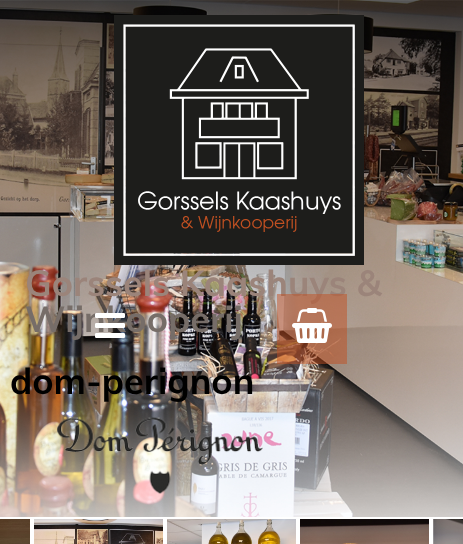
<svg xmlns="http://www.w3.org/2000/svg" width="463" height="544">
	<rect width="100%" height="100%" fill="#FFFFFF" />
	<image x="0" y="0" width="463" height="517" href="assets/img1.png" />
	<image x="114" y="15" width="250" height="250" href="assets/img2.png" />
	<text x="25" y="296" font-family="Muli" font-size="36" font-weight="700" fill="#9B847A">Gorssels Kaashuys &amp;</text>
	<text x="25" y="332" font-family="Muli" font-size="36" font-weight="700" fill="#766D68">Wijnkooperij</text>
	<rect x="277" y="294" width="70" height="70" fill="#C14F21" fill-opacity="0.5" />
	<image x="292" y="308" width="40" height="35" href="assets/img3.png" />
	<image x="95" y="313" width="30" height="25" href="assets/img4.png" />
	<text x="10" y="394" font-family="Muli" font-size="36" font-weight="700" fill="#000000">dom-perignon</text>
	<image x="57" y="417" width="206" height="77" href="assets/img5.png" />
	<image x="0" y="519" width="30" height="25" href="assets/img6.png" />
	<image x="34" y="519" width="129" height="25" href="assets/img7.png" />
	<image x="167" y="519" width="129" height="25" href="assets/img8.png" />
	<image x="300" y="519" width="129" height="25" href="assets/img9.png" />
	<image x="433" y="519" width="30" height="25" href="assets/img10.png" />
</svg>
